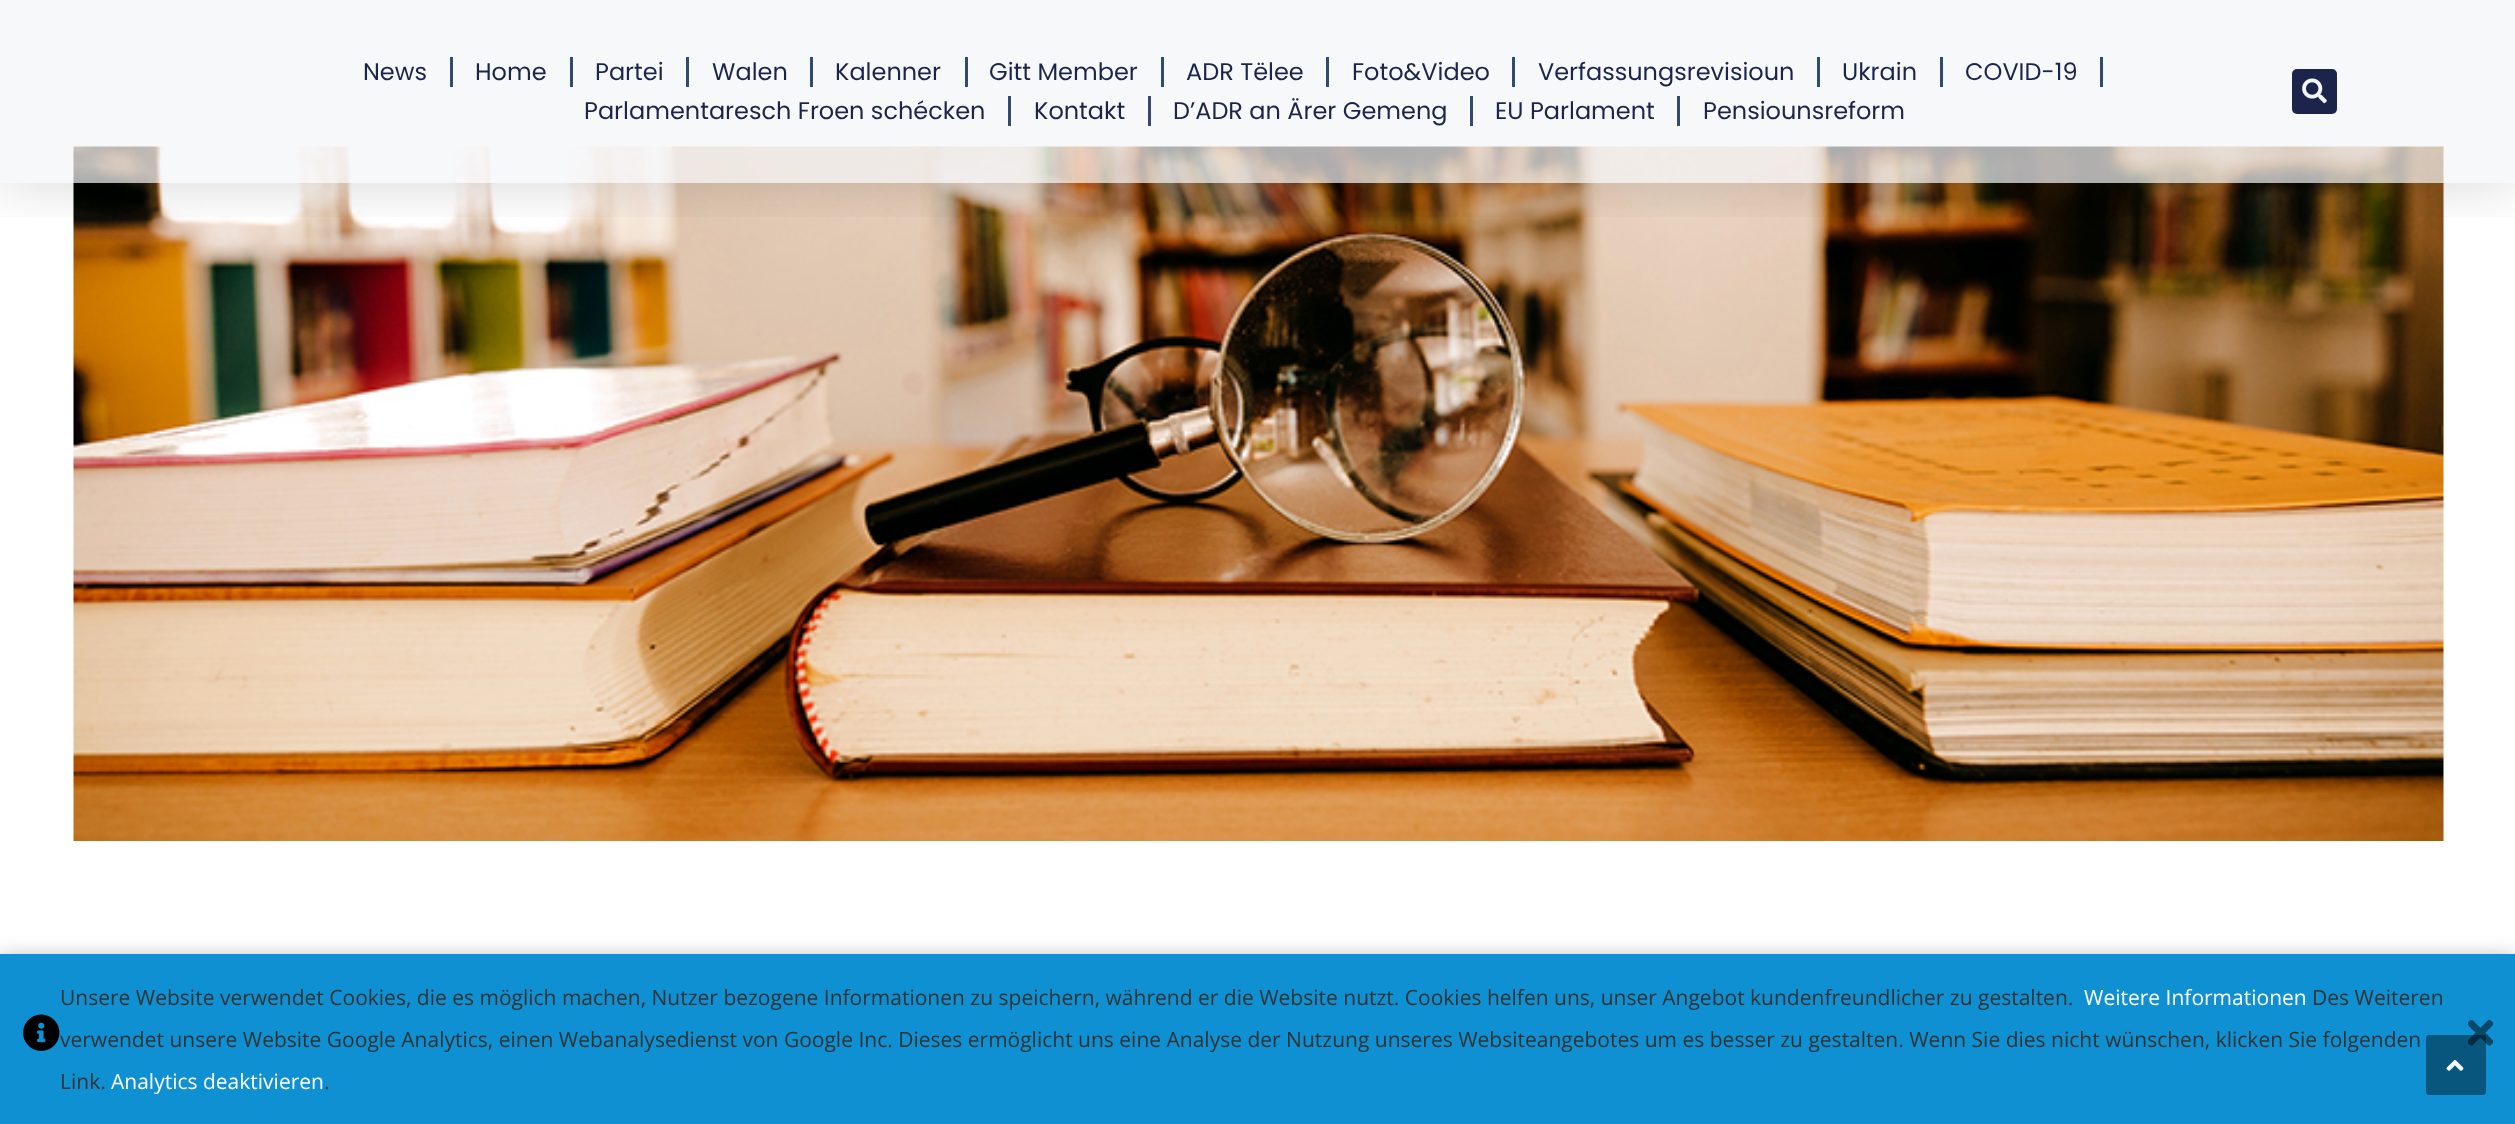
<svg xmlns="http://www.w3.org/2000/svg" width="2515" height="1124">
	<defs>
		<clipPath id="clip1"><rect x="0" y="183" width="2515" height="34" /></clipPath>
	</defs>
	<rect width="100%" height="100%" fill="#FFFFFF" />
	<image x="73" y="146" width="2371" height="695" href="assets/img2.png" />
	<g clip-path="url(#clip1)">
		<rect x="0" y="0" width="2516" height="183" fill="#000000" fill-opacity="0.16" filter="blur(30px)" />
	</g>
	<rect x="0" y="0" width="2515" height="183" fill="#F3F5F8" fill-opacity="0.7" />
	<text x="363" y="80" font-family="Poppins" font-size="24" fill="#1C244B">News</text>
	<rect x="450" y="57" width="3" height="30" fill="#324A6D" />
	<text x="475" y="80" font-family="Poppins" font-size="24" fill="#1C244B">Home</text>
	<rect x="570" y="57" width="3" height="30" fill="#324A6D" />
	<text x="595" y="80" font-family="Poppins" font-size="24" fill="#1C244B">Partei</text>
	<rect x="686" y="57" width="3" height="30" fill="#324A6D" />
	<text x="712" y="80" font-family="Poppins" font-size="24" fill="#1C244B">Walen</text>
	<rect x="810" y="57" width="3" height="30" fill="#324A6D" />
	<text x="835" y="80" font-family="Poppins" font-size="24" fill="#1C244B">Kalenner</text>
	<rect x="965" y="57" width="3" height="30" fill="#324A6D" />
	<text x="989" y="80" font-family="Poppins" font-size="24" fill="#1C244B">Gitt Member</text>
	<rect x="1161" y="57" width="3" height="30" fill="#324A6D" />
	<text x="1186" y="80" font-family="Poppins" font-size="24" fill="#1C244B">ADR Tëlee</text>
	<rect x="1326" y="57" width="3" height="30" fill="#324A6D" />
	<text x="1352" y="80" font-family="Poppins" font-size="24" fill="#1C244B">Foto&amp;Video</text>
	<rect x="1512" y="57" width="3" height="30" fill="#324A6D" />
	<text x="1538" y="80" font-family="Poppins" font-size="24" fill="#1C244B">Verfassungsrevisioun</text>
	<rect x="1817" y="57" width="3" height="30" fill="#324A6D" />
	<text x="1842" y="80" font-family="Poppins" font-size="24" fill="#1C244B">Ukrain</text>
	<rect x="1940" y="57" width="3" height="30" fill="#324A6D" />
	<text x="1965" y="80" font-family="Poppins" font-size="24" fill="#1C244B">COVID-19</text>
	<rect x="2100" y="57" width="3" height="30" fill="#324A6D" />
	<text x="584" y="119" font-family="Poppins" font-size="24" fill="#1C244B">Parlamentaresch Froen schécken</text>
	<rect x="1008" y="96" width="3" height="30" fill="#324A6D" />
	<text x="1034" y="119" font-family="Poppins" font-size="24" fill="#1C244B">Kontakt</text>
	<rect x="1148" y="96" width="3" height="30" fill="#324A6D" />
	<text x="1173" y="119" font-family="Poppins" font-size="24" fill="#1C244B">D’ADR an Ärer Gemeng</text>
	<rect x="1470" y="96" width="3" height="30" fill="#324A6D" />
	<text x="1495" y="119" font-family="Poppins" font-size="24" fill="#1C244B">EU Parlament</text>
	<rect x="1677" y="96" width="3" height="30" fill="#324A6D" />
	<text x="1703" y="119" font-family="Poppins" font-size="24" fill="#1C244B">Pensiounsreform</text>
	<rect x="2292" y="69" width="45" height="45" rx="5" fill="#1C244B" />
	<image x="2302" y="78" width="25" height="26" href="assets/img1.png" />
	<rect x="0" y="960" width="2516" height="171" fill="#000000" fill-opacity="0.4" filter="blur(11px)" />
	<rect x="0" y="954" width="2515" height="170" fill="#0E90D2" />
	<image x="23" y="1014" width="37" height="37" href="assets/img3.png" />
	<text x="60" y="1005" font-family="Open Sans" font-size="21" fill="#333333">Unsere Website verwendet Cookies, die es möglich machen, Nutzer bezogene Informationen zu speichern, während er die Website nutzt. Cookies helfen uns, unser Angebot kundenfreundlicher zu gestalten.</text>
	<text x="2084" y="1005" font-family="Open Sans" font-size="21" fill="#FFFFFF">Weitere Informationen</text>
	<g font-family="Open Sans" font-size="21" fill="#333333">
		<text x="2312" y="1005">Des Weiteren</text>
		<text x="60" y="1047">verwendet unsere Website Google Analytics, einen Webanalysedienst von Google Inc. Dieses ermöglicht uns eine Analyse der Nutzung unseres Websiteangebotes um es besser zu gestalten. Wenn Sie dies nicht wünschen, klicken Sie folgenden</text>
		<text x="60" y="1089">Link.</text>
	</g>
	<text x="111" y="1089" font-family="Open Sans" font-size="21" fill="#FFFFFF">Analytics deaktivieren</text>
	<text x="324" y="1089" font-family="Open Sans" font-size="21" fill="#333333">.</text>
	<image x="2468" y="1019" width="25" height="27" href="assets/img4.png" />
	<rect x="2426" y="1035" width="60" height="60" rx="3" fill="#000000" fill-opacity="0.4" />
	<image x="2446" y="1060" width="18" height="11" href="assets/img5.png" />
</svg>
